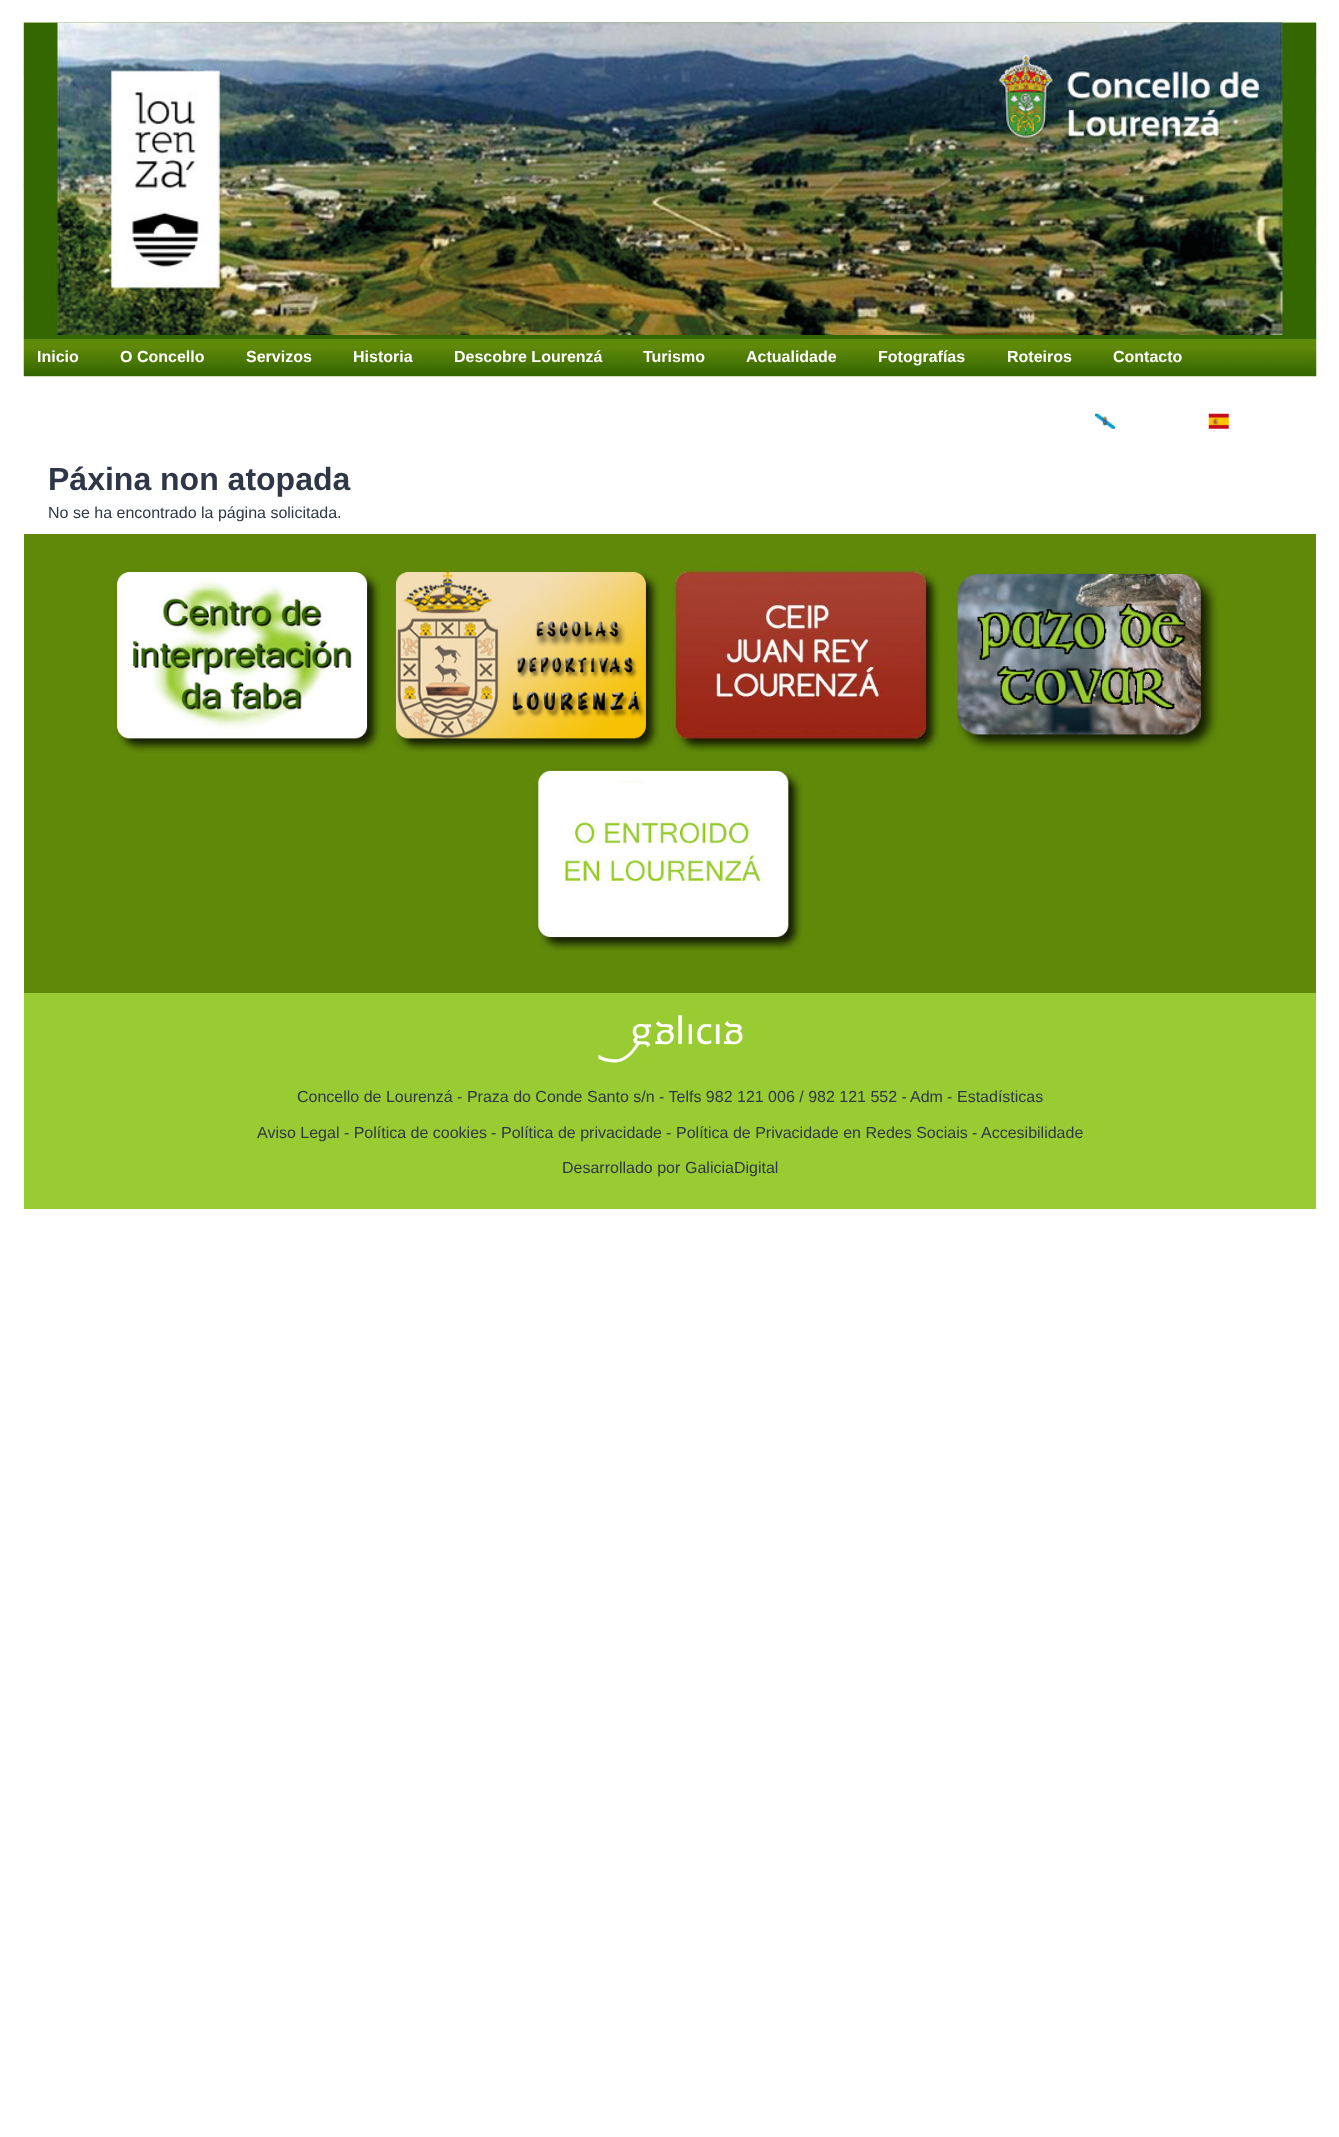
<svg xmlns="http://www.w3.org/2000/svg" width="1339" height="2137">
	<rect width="100%" height="100%" fill="#FFFFFF" />
	<image x="23" y="22" width="1294" height="355" href="assets/img1.png" />
	<rect x="24" y="23" width="1292" height="316" fill="#356700" />
	<image x="57" y="22" width="1226" height="313" href="assets/img2.png" />
	<g font-family="Liberation Sans" font-size="16" font-weight="700" fill="#FFFFFF">
		<text x="37" y="362">Inicio</text>
		<text x="120" y="362">O Concello</text>
		<text x="246" y="362">Servizos</text>
		<text x="353" y="362">Historia</text>
		<text x="454" y="362">Descobre Lourenzá</text>
		<text x="643" y="362">Turismo</text>
		<text x="746" y="362">Actualidade</text>
		<text x="878" y="362">Fotografías</text>
		<text x="1007" y="362">Roteiros</text>
		<text x="1113" y="362">Contacto</text>
	</g>
	<image x="1095" y="413" width="20" height="16" href="assets/img3.png" />
	<image x="1208" y="413" width="21" height="16" href="assets/img4.png" />
	<text x="48" y="490" font-family="Liberation Sans" font-size="32" font-weight="700" fill="#2F3746">Páxina non atopada</text>
	<text x="48" y="518" font-family="Liberation Sans" font-size="16" fill="#2F3746">No se ha encontrado la página solicitada.</text>
	<rect x="24" y="993" width="1292" height="216" fill="#99CC33" />
	<rect x="24" y="534" width="1292" height="459" fill="#60890A" />
	<image x="111" y="566" width="270" height="187" href="assets/img5.png" />
	<image x="395" y="571" width="265" height="181" href="assets/img6.png" />
	<image x="670" y="566" width="270" height="186" href="assets/img7.png" />
	<image x="957" y="573" width="261" height="178" href="assets/img8.png" />
	<image x="534" y="765" width="268" height="186" href="assets/img9.png" />
	<image x="598" y="1015" width="145" height="48" href="assets/img10.png" />
	<g font-family="Liberation Sans" font-size="16" fill="#2F3746">
		<text x="297" y="1102">Concello de Lourenzá - Praza do Conde Santo s/n - Telfs 982 121 006 / 982 121 552 -</text>
		<text x="910" y="1102">Adm</text>
		<text x="947" y="1102">-</text>
		<text x="957" y="1102">Estadísticas</text>
		<text x="257" y="1138">Aviso Legal - Política de cookies</text>
		<text x="491" y="1138">-</text>
		<text x="501" y="1138">Política de privacidade</text>
		<text x="666" y="1138">-</text>
		<text x="676" y="1138">Política de Privacidade en Redes Sociais</text>
		<text x="972" y="1138">-</text>
		<text x="981" y="1138">Accesibilidade</text>
		<text x="562" y="1173">Desarrollado por</text>
		<text x="685" y="1173">GaliciaDigital</text>
	</g>
</svg>
